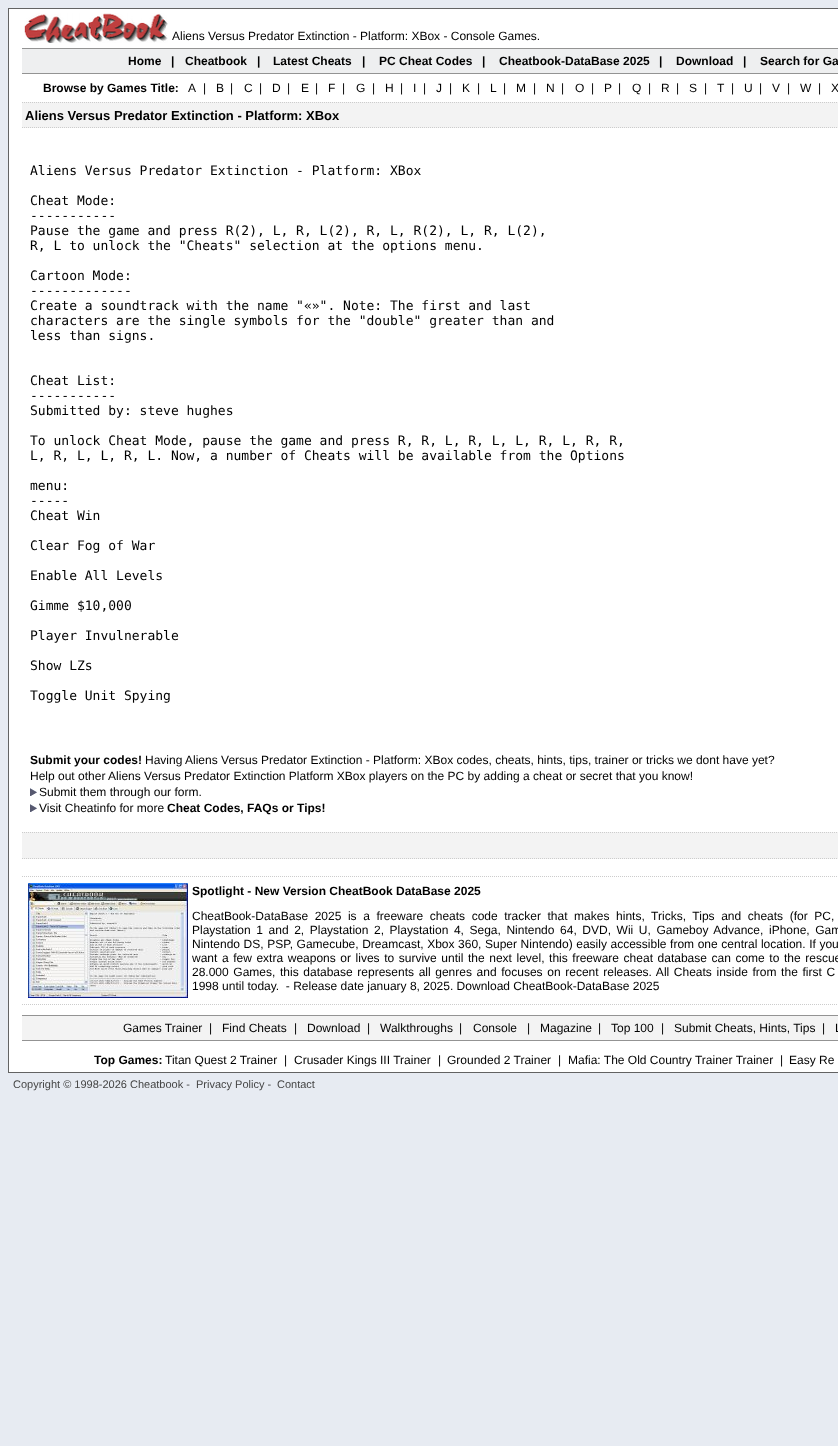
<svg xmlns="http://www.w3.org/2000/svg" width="838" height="1446">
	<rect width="100%" height="100%" fill="#E7EBF2" />
	<rect x="8.5" y="8.5" width="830" height="1064" fill="#FFFFFF" stroke="#636363" />
	<image x="24" y="13" width="144" height="30" href="assets/img1.png" />
	<text x="172" y="40" font-family="Liberation Sans" font-size="12" fill="#000000">Aliens Versus Predator Extinction - Platform: XBox - Console Games.</text>
	<rect x="22" y="49" width="816" height="24" fill="#EEEFF0" />
	<rect x="22" y="48" width="816" height="1" fill="#939393" />
	<rect x="22" y="73" width="816" height="1" fill="#939393" />
	<g font-family="Liberation Sans" font-size="12" font-weight="700" fill="#000000">
		<text x="128" y="65">Home</text>
		<text x="171" y="65">|</text>
		<text x="185" y="65">Cheatbook</text>
		<text x="257" y="65">|</text>
		<text x="273" y="65">Latest Cheats</text>
		<text x="362" y="65">|</text>
		<text x="379" y="65">PC Cheat Codes</text>
		<text x="482" y="65">|</text>
		<text x="499" y="65">Cheatbook-DataBase 2025</text>
		<text x="659" y="65">|</text>
		<text x="676" y="65">Download</text>
		<text x="743" y="65">|</text>
		<text x="760" y="65">Search for Ga</text>
		<text x="43" y="92">Browse by Games Title:</text>
	</g>
	<g font-family="Liberation Sans" font-size="12" fill="#000000">
		<text x="188" y="92">A</text>
		<text x="203" y="92">|</text>
		<text x="216" y="92">B</text>
		<text x="230" y="92">|</text>
		<text x="244" y="92">C</text>
		<text x="259" y="92">|</text>
		<text x="272" y="92">D</text>
		<text x="287" y="92">|</text>
		<text x="301" y="92">E</text>
		<text x="315" y="92">|</text>
		<text x="328" y="92">F</text>
		<text x="342" y="92">|</text>
		<text x="356" y="92">G</text>
		<text x="372" y="92">|</text>
		<text x="385" y="92">H</text>
		<text x="400" y="92">|</text>
		<text x="413" y="92">I</text>
		<text x="423" y="92">|</text>
		<text x="436" y="92">J</text>
		<text x="449" y="92">|</text>
		<text x="462" y="92">K</text>
		<text x="477" y="92">|</text>
		<text x="490" y="92">L</text>
		<text x="503" y="92">|</text>
		<text x="516" y="92">M</text>
		<text x="533" y="92">|</text>
		<text x="546" y="92">N</text>
		<text x="561" y="92">|</text>
		<text x="575" y="92">O</text>
		<text x="591" y="92">|</text>
		<text x="604" y="92">P</text>
		<text x="618" y="92">|</text>
		<text x="632" y="92">Q</text>
		<text x="648" y="92">|</text>
		<text x="661" y="92">R</text>
		<text x="676" y="92">|</text>
		<text x="689" y="92">S</text>
		<text x="704" y="92">|</text>
		<text x="717" y="92">T</text>
		<text x="731" y="92">|</text>
		<text x="744" y="92">U</text>
		<text x="759" y="92">|</text>
		<text x="772" y="92">V</text>
		<text x="787" y="92">|</text>
		<text x="800" y="92">W</text>
		<text x="818" y="92">|</text>
		<text x="831" y="92">X</text>
	</g>
	<rect x="22" y="102" width="816" height="26" fill="#F3F3F3" />
	<path d="M22 102.5H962" fill="none" stroke="#CCCCCC" stroke-dasharray="1 1" />
	<path d="M22 127.5H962" fill="none" stroke="#CCCCCC" stroke-dasharray="1 1" />
	<text x="25" y="120" font-family="Liberation Sans" font-size="13" font-weight="700" fill="#000000">Aliens Versus Predator Extinction - Platform: XBox</text>
	<g font-family="DejaVu Sans Mono" font-size="13" fill="#000000">
		<text x="30" y="175">Aliens Versus Predator Extinction - Platform: XBox</text>
		<text x="30" y="205">Cheat Mode:</text>
		<text x="30" y="220">-----------</text>
		<text x="30" y="235">Pause the game and press R(2), L, R, L(2), R, L, R(2), L, R, L(2),</text>
		<text x="30" y="250">R, L to unlock the "Cheats" selection at the options menu.</text>
		<text x="30" y="280">Cartoon Mode:</text>
		<text x="30" y="295">-------------</text>
		<text x="30" y="310">Create a soundtrack with the name "«»". Note: The first and last</text>
		<text x="30" y="325">characters are the single symbols for the "double" greater than and</text>
		<text x="30" y="340">less than signs.</text>
		<text x="30" y="385">Cheat List:</text>
		<text x="30" y="400">-----------</text>
		<text x="30" y="415">Submitted by: steve hughes</text>
		<text x="30" y="445">To unlock Cheat Mode, pause the game and press R, R, L, R, L, L, R, L, R, R,</text>
		<text x="30" y="460">L, R, L, L, R, L. Now, a number of Cheats will be available from the Options</text>
		<text x="30" y="490">menu:</text>
		<text x="30" y="505">-----</text>
		<text x="30" y="520">Cheat Win</text>
		<text x="30" y="550">Clear Fog of War</text>
		<text x="30" y="580">Enable All Levels</text>
		<text x="30" y="610">Gimme $10,000</text>
		<text x="30" y="640">Player Invulnerable</text>
		<text x="30" y="670">Show LZs</text>
		<text x="30" y="700">Toggle Unit Spying</text>
	</g>
	<text x="30" y="764" font-family="Liberation Sans" font-size="12" font-weight="700" fill="#000000">Submit your codes!</text>
	<g font-family="Liberation Sans" font-size="12" fill="#000000">
		<text x="145" y="764">Having Aliens Versus Predator Extinction - Platform: XBox codes, cheats, hints, tips, trainer or tricks we dont have yet?</text>
		<text x="30" y="780">Help out other Aliens Versus Predator Extinction Platform XBox players on the PC by adding a cheat or secret that you know!</text>
	</g>
	<image x="30" y="788" width="7" height="8" href="assets/img2.png" />
	<text x="39" y="796" font-family="Liberation Sans" font-size="12" fill="#000000">Submit them through our form.</text>
	<image x="30" y="804" width="7" height="8" href="assets/img2.png" />
	<text x="39" y="812" font-family="Liberation Sans" font-size="12" fill="#000000">Visit Cheatinfo for more</text>
	<text x="167" y="812" font-family="Liberation Sans" font-size="12" font-weight="700" fill="#000000">Cheat Codes, FAQs or Tips!</text>
	<rect x="22" y="832" width="816" height="27" fill="#F3F3F3" />
	<path d="M22 832.5H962" fill="none" stroke="#CCCCCC" stroke-dasharray="1 1" />
	<path d="M22 858.5H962" fill="none" stroke="#CCCCCC" stroke-dasharray="1 1" />
	<path d="M22 876.5H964" fill="none" stroke="#CCCCCC" stroke-dasharray="1 1" />
	<path d="M22 1004.5H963" fill="none" stroke="#CCCCCC" stroke-dasharray="1 1" />
	<image x="28" y="883" width="160" height="115" href="assets/img3.png" />
	<text x="192" y="895" font-family="Liberation Sans" font-size="12" font-weight="700" fill="#000000">Spotlight - New Version CheatBook DataBase 2025</text>
	<g font-family="Liberation Sans" font-size="12" fill="#000000">
		<text x="192" y="920" word-spacing="3.25">CheatBook-DataBase 2025 is a freeware cheats code tracker that makes hints, Tricks, Tips and cheats (for PC,</text>
		<text x="192" y="934" word-spacing="2.25">Playstation 1 and 2, Playstation 2, Playstation 4, Sega, Nintendo 64, DVD, Wii U, Gameboy Advance, iPhone, Gam</text>
		<text x="192" y="948" word-spacing="0.25">Nintendo DS, PSP, Gamecube, Dreamcast, Xbox 360, Super Nintendo) easily accessible from one central location. If you</text>
		<text x="192" y="962" word-spacing="1.25">want a few extra weapons or lives to survive until the next level, this freeware cheat database can come to the rescue</text>
		<text x="192" y="976" word-spacing="1.3">28.000 Games, this database represents all genres and focuses on recent releases. All Cheats inside from the first C</text>
		<text x="192" y="990" xml:space="preserve">1998 until today.  - Release date january 8, 2025. Download CheatBook-DataBase 2025</text>
	</g>
	<rect x="22" y="1016" width="816" height="24" fill="#F3F3F3" />
	<rect x="22" y="1015" width="816" height="1" fill="#939393" />
	<rect x="22" y="1040" width="816" height="1" fill="#939393" />
	<g font-family="Liberation Sans" font-size="12" fill="#000000">
		<text x="123" y="1032">Games Trainer</text>
		<text x="209" y="1032">|</text>
		<text x="222" y="1032">Find Cheats</text>
		<text x="294" y="1032">|</text>
		<text x="307" y="1032">Download</text>
		<text x="367" y="1032">|</text>
		<text x="380" y="1032">Walkthroughs</text>
		<text x="459" y="1032">|</text>
		<text x="473" y="1032">Console</text>
		<text x="527" y="1032">|</text>
		<text x="540" y="1032">Magazine</text>
		<text x="598" y="1032">|</text>
		<text x="611" y="1032">Top 100</text>
		<text x="661" y="1032">|</text>
		<text x="674" y="1032">Submit Cheats, Hints, Tips</text>
		<text x="822" y="1032">|</text>
		<text x="835" y="1032">L</text>
	</g>
	<text x="94" y="1064" font-family="Liberation Sans" font-size="12" font-weight="700" fill="#000000">Top Games:</text>
	<g font-family="Liberation Sans" font-size="12" fill="#000000">
		<text x="165" y="1064">Titan Quest 2 Trainer</text>
		<text x="284" y="1064">|</text>
		<text x="294" y="1064">Crusader Kings III Trainer</text>
		<text x="438" y="1064">|</text>
		<text x="447" y="1064">Grounded 2 Trainer</text>
		<text x="558" y="1064">|</text>
		<text x="568" y="1064">Mafia: The Old Country Trainer Trainer</text>
		<text x="780" y="1064">|</text>
		<text x="789" y="1064">Easy Re</text>
	</g>
	<g font-family="Liberation Sans" font-size="11" fill="#454545">
		<text x="13" y="1088">Copyright © 1998-2026 Cheatbook -</text>
		<text x="196" y="1088">Privacy Policy -</text>
		<text x="277" y="1088">Contact</text>
	</g>
</svg>
